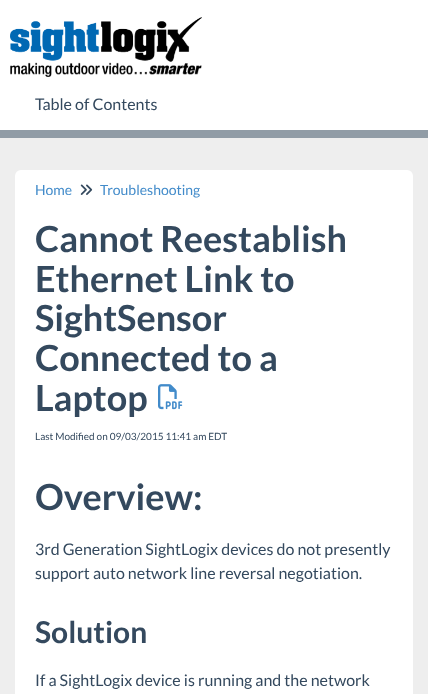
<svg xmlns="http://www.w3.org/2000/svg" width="428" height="694">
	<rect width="100%" height="100%" fill="#EEEEEE" />
	<rect x="0" y="0" width="428" height="130" fill="#FFFFFF" />
	<rect x="0" y="130" width="428" height="8" fill="#919CA6" />
	<image x="10" y="17" width="192" height="60" href="assets/img1.png" />
	<text x="35" y="110" font-family="Lato" font-size="16" fill="#34495E">Table of Contents</text>
	<rect x="15" y="170" width="398" height="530" rx="6" fill="#FFFFFF" />
	<text x="35" y="195" font-family="Lato" font-size="14" fill="#428BCA">Home</text>
	<image x="80" y="184" width="13" height="11" href="assets/img2.png" />
	<text x="100" y="195" font-family="Lato" font-size="14" fill="#428BCA">Troubleshooting</text>
	<g font-family="Lato" font-size="36" font-weight="700" fill="#34495E">
		<text x="35" y="252">Cannot Reestablish</text>
		<text x="35" y="292">Ethernet Link to</text>
		<text x="35" y="331">SightSensor</text>
		<text x="35" y="371">Connected to a</text>
		<text x="35" y="411">Laptop</text>
	</g>
	<image x="158" y="384" width="25" height="26" href="assets/img3.png" />
	<text x="35" y="440" font-family="Lato" font-size="10" fill="#34495E">Last Modified on 09/03/2015 11:41 am EDT</text>
	<text x="35" y="510" font-family="Lato" font-size="36" font-weight="700" fill="#34495E">Overview:</text>
	<g font-family="Lato" font-size="16" fill="#34495E">
		<text x="35" y="555">3rd Generation SightLogix devices do not presently</text>
		<text x="35" y="579">support auto network line reversal negotiation.</text>
	</g>
	<text x="35" y="643" font-family="Lato" font-size="30" font-weight="700" fill="#34495E">Solution</text>
	<text x="35" y="686" font-family="Lato" font-size="16" fill="#34495E">If a SightLogix device is running and the network</text>
</svg>
